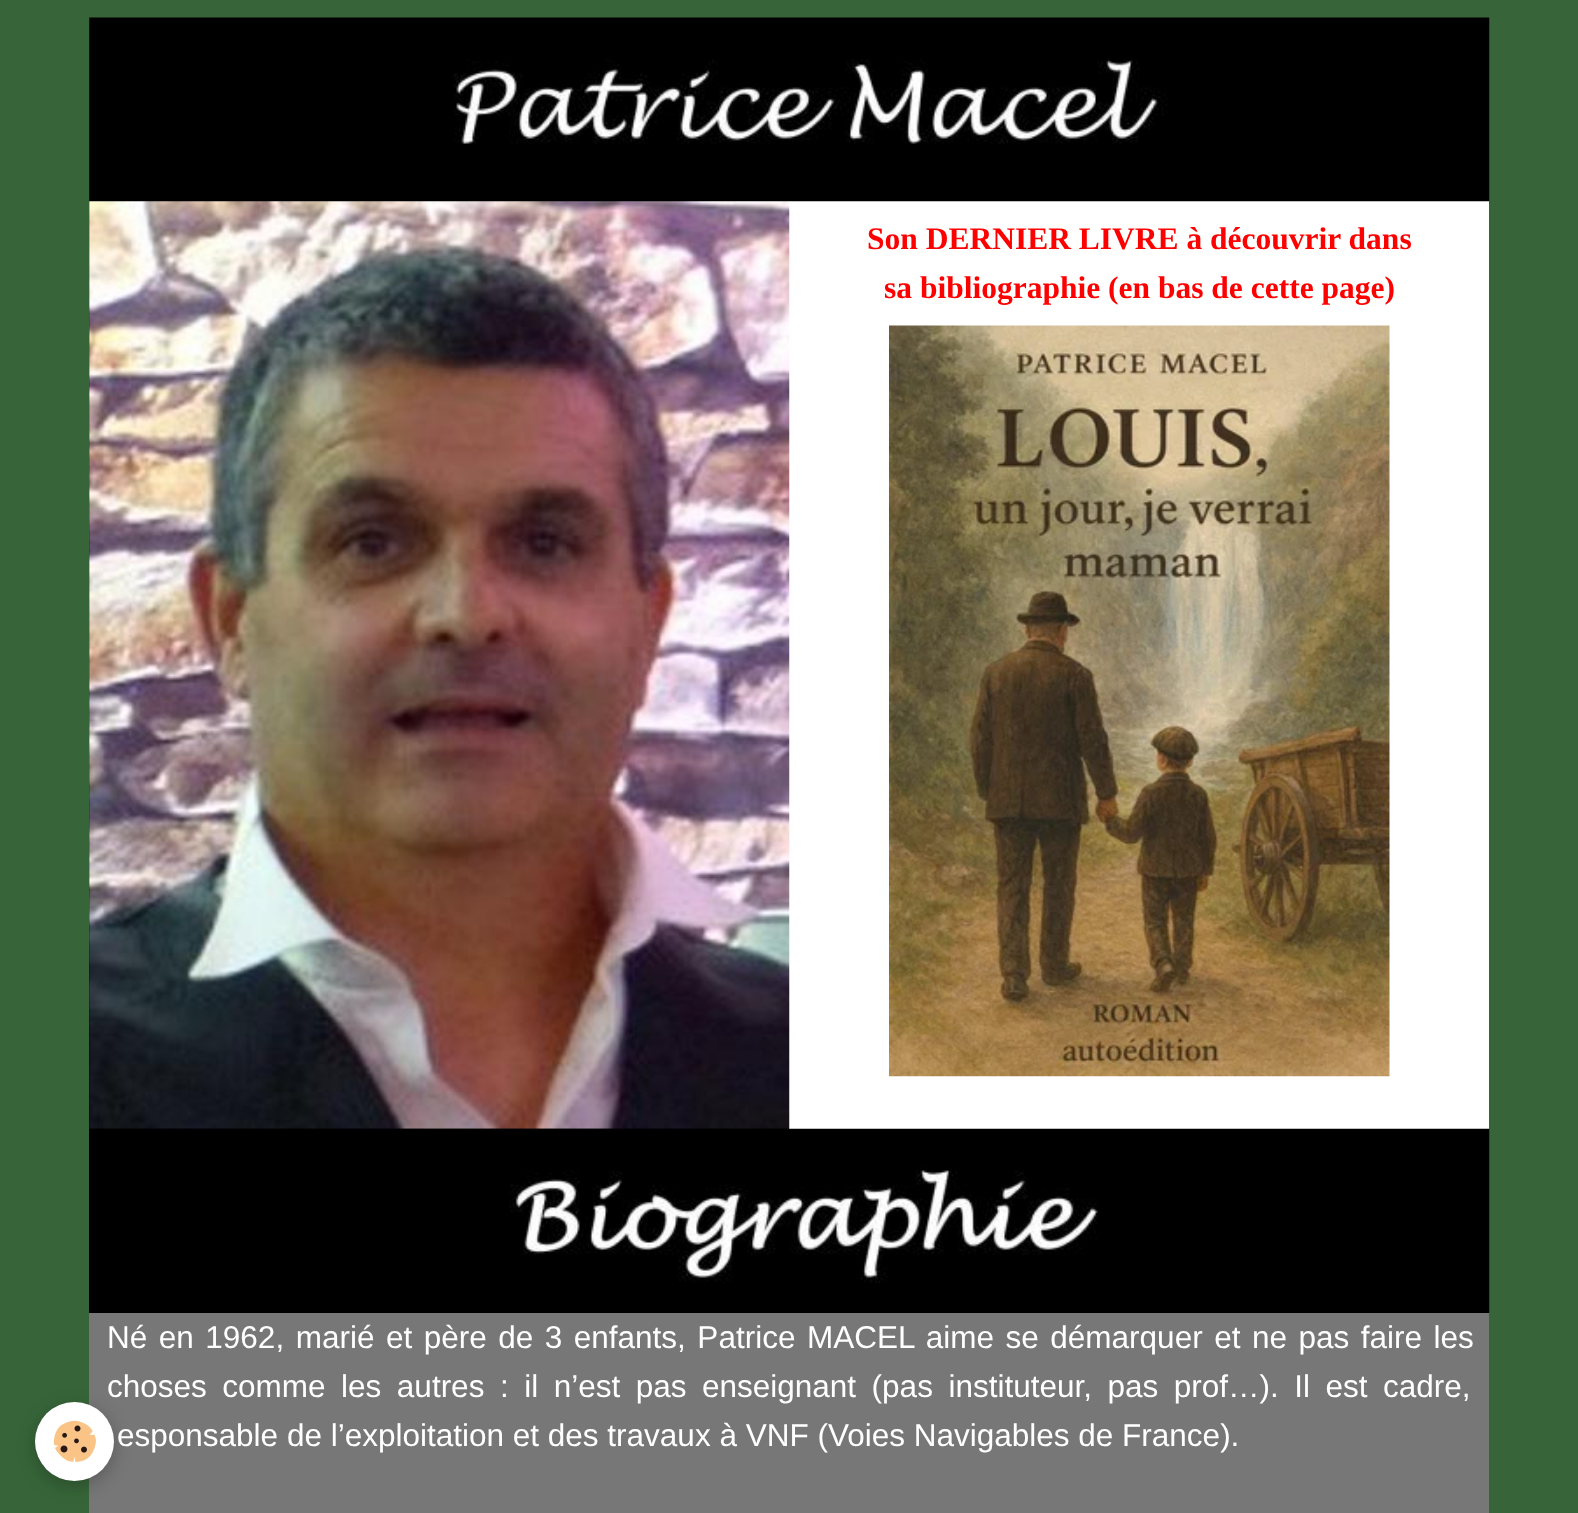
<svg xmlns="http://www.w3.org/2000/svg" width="1578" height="1513">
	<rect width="100%" height="100%" fill="#376539" />
	<rect x="89" y="1313" width="1400" height="200" fill="#777777" />
	<rect x="35" y="1407" width="79" height="79" rx="39.5" fill="#000000" fill-opacity="0.24" filter="blur(9px)" />
	<circle cx="74.5" cy="1441.5" r="39.5" fill="#FFFFFF" />
	<image x="53" y="1420" width="43" height="42" href="assets/img1.png" />
	<rect x="89" y="201" width="700" height="928" fill="#000000" />
	<rect x="789" y="201" width="700" height="928" fill="#FFFFFF" />
	<image x="89" y="17" width="1401" height="185" href="assets/img2.png" />
	<image x="89" y="201" width="701" height="928" href="assets/img3.png" />
	<g font-family="Liberation Serif" font-size="31.5" font-weight="700" fill="#FF0000">
		<text x="867" y="249">Son DERNIER LIVRE à découvrir dans</text>
		<text x="884" y="298">sa bibliographie (en bas de cette page)</text>
	</g>
	<image x="889" y="325" width="501" height="752" href="assets/img4.png" />
	<rect x="89" y="1129" width="1400" height="184" fill="#000000" />
	<image x="90" y="1128" width="1400" height="185" href="assets/img5.png" />
	<g font-family="Liberation Sans" font-size="31.5" fill="#FFFFFF">
		<text x="107" y="1348" word-spacing="2.75">Né en 1962, marié et père de 3 enfants, Patrice MACEL aime se démarquer et ne pas faire les</text>
		<text x="107" y="1397" word-spacing="6.75">choses comme les autres : il n’est pas enseignant (pas instituteur, pas prof…). Il est cadre,</text>
		<text x="117" y="1446">esponsable de l’exploitation et des travaux à VNF (Voies Navigables de France).</text>
	</g>
</svg>
